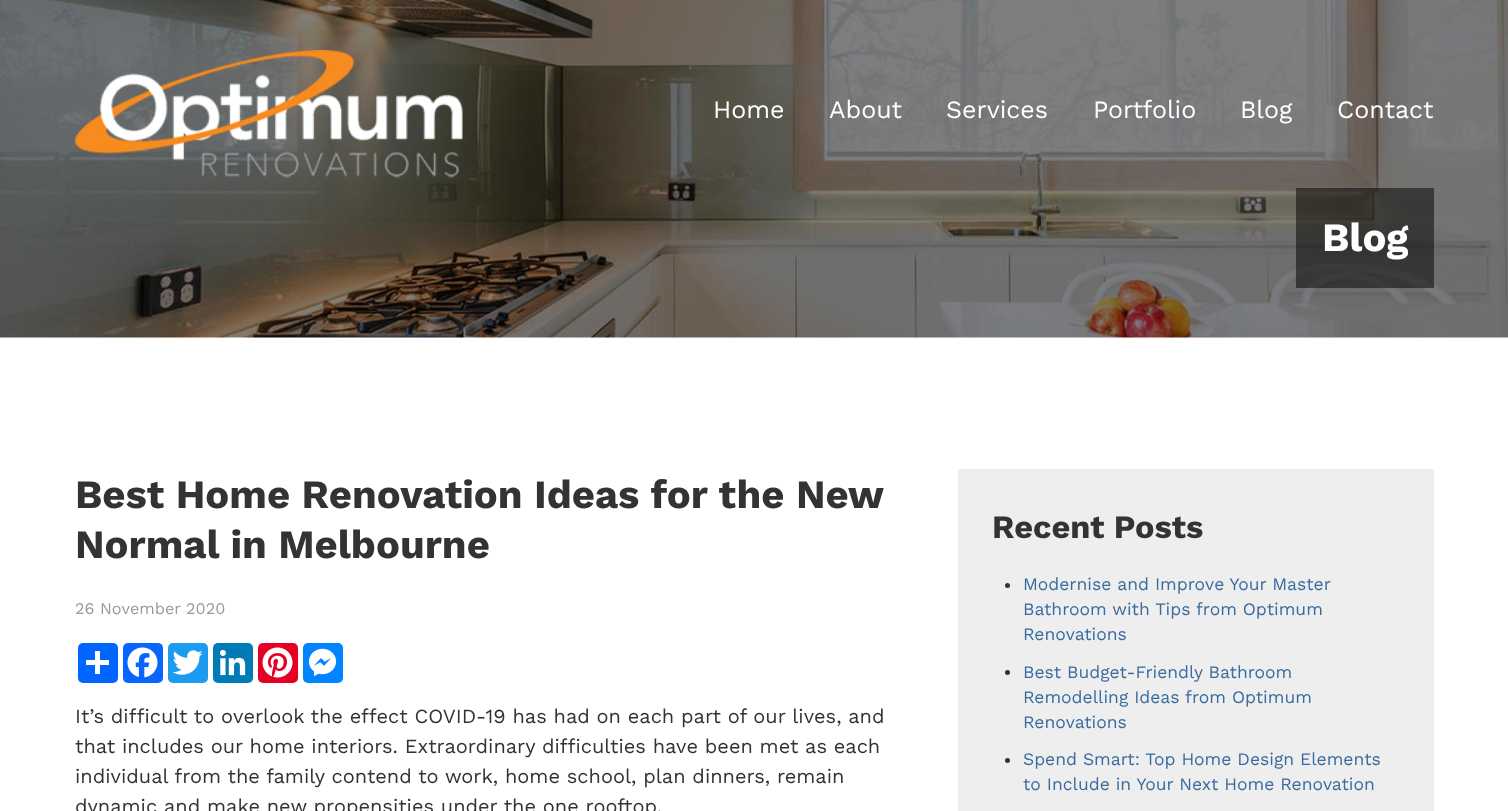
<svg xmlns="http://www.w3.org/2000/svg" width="1508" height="811">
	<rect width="100%" height="100%" fill="#FFFFFF" />
	<image x="0" y="0" width="1508" height="338" href="assets/img2.png" />
	<image x="75" y="50" width="388" height="128" href="assets/img1.png" />
	<g font-family="Work Sans" font-size="25" fill="#FFFFFF">
		<text x="713" y="118">Home</text>
		<text x="829" y="118">About</text>
		<text x="946" y="118">Services</text>
		<text x="1093" y="118">Portfolio</text>
		<text x="1240" y="118">Blog</text>
		<text x="1337" y="118">Contact</text>
	</g>
	<rect x="1296" y="188" width="138" height="100" fill="#000000" fill-opacity="0.5" />
	<text x="1322" y="251" font-family="Work Sans" font-size="40" font-weight="700" fill="#FFFFFF">Blog</text>
	<g font-family="Work Sans" font-size="40" font-weight="700" fill="#333333">
		<text x="75" y="508">Best Home Renovation Ideas for the New</text>
		<text x="75" y="558">Normal in Melbourne</text>
	</g>
	<text x="75" y="614" font-family="Work Sans" font-size="16.25" fill="#999999">26 November 2020</text>
	<rect x="78" y="643" width="40" height="40" rx="5" fill="#0166FF" />
	<rect x="95" y="651" width="5" height="23" fill="#FFFFFF" />
	<rect x="86" y="660" width="23" height="5" fill="#FFFFFF" />
	<rect x="123" y="643" width="40" height="40" rx="5" fill="#0866FF" />
	<image x="127" y="647" width="31" height="31" href="assets/img3.png" />
	<rect x="168" y="643" width="40" height="40" rx="5" fill="#1D9BF0" />
	<image x="172" y="650" width="31" height="25" href="assets/img4.png" />
	<rect x="213" y="643" width="40" height="40" rx="5" fill="#007BB5" />
	<image x="219" y="649" width="27" height="27" href="assets/img5.png" />
	<rect x="258" y="643" width="40" height="40" rx="5" fill="#E60023" />
	<image x="262" y="647" width="31" height="31" href="assets/img6.png" />
	<rect x="303" y="643" width="40" height="40" rx="5" fill="#0084FF" />
	<image x="308" y="648" width="29" height="29" href="assets/img7.png" />
	<g font-family="Work Sans" font-size="20" fill="#333333">
		<text x="75" y="723">It’s difficult to overlook the effect COVID-19 has had on each part of our lives, and</text>
		<text x="75" y="753">that includes our home interiors. Extraordinary difficulties have been met as each</text>
		<text x="75" y="783">individual from the family contend to work, home school, plan dinners, remain</text>
		<text x="75" y="813">dynamic and make new propensities under the one rooftop.</text>
	</g>
	<rect x="958" y="469" width="476" height="342" fill="#EEEEEE" />
	<text x="992" y="538" font-family="Work Sans" font-size="32.5" font-weight="700" fill="#333333">Recent Posts</text>
	<circle cx="1007.5" cy="585.5" r="2.5" fill="#333333" />
	<g font-family="Work Sans" font-size="17.5" fill="#386B9F">
		<text x="1023" y="590">Modernise and Improve Your Master</text>
		<text x="1023" y="615">Bathroom with Tips from Optimum</text>
		<text x="1023" y="640">Renovations</text>
	</g>
	<circle cx="1007.5" cy="672.5" r="2.5" fill="#333333" />
	<g font-family="Work Sans" font-size="17.5" fill="#386B9F">
		<text x="1023" y="678">Best Budget-Friendly Bathroom</text>
		<text x="1023" y="703">Remodelling Ideas from Optimum</text>
		<text x="1023" y="728">Renovations</text>
	</g>
	<circle cx="1007.5" cy="760.5" r="2.5" fill="#333333" />
	<g font-family="Work Sans" font-size="17.5" fill="#386B9F">
		<text x="1023" y="765">Spend Smart: Top Home Design Elements</text>
		<text x="1023" y="790">to Include in Your Next Home Renovation</text>
	</g>
</svg>
